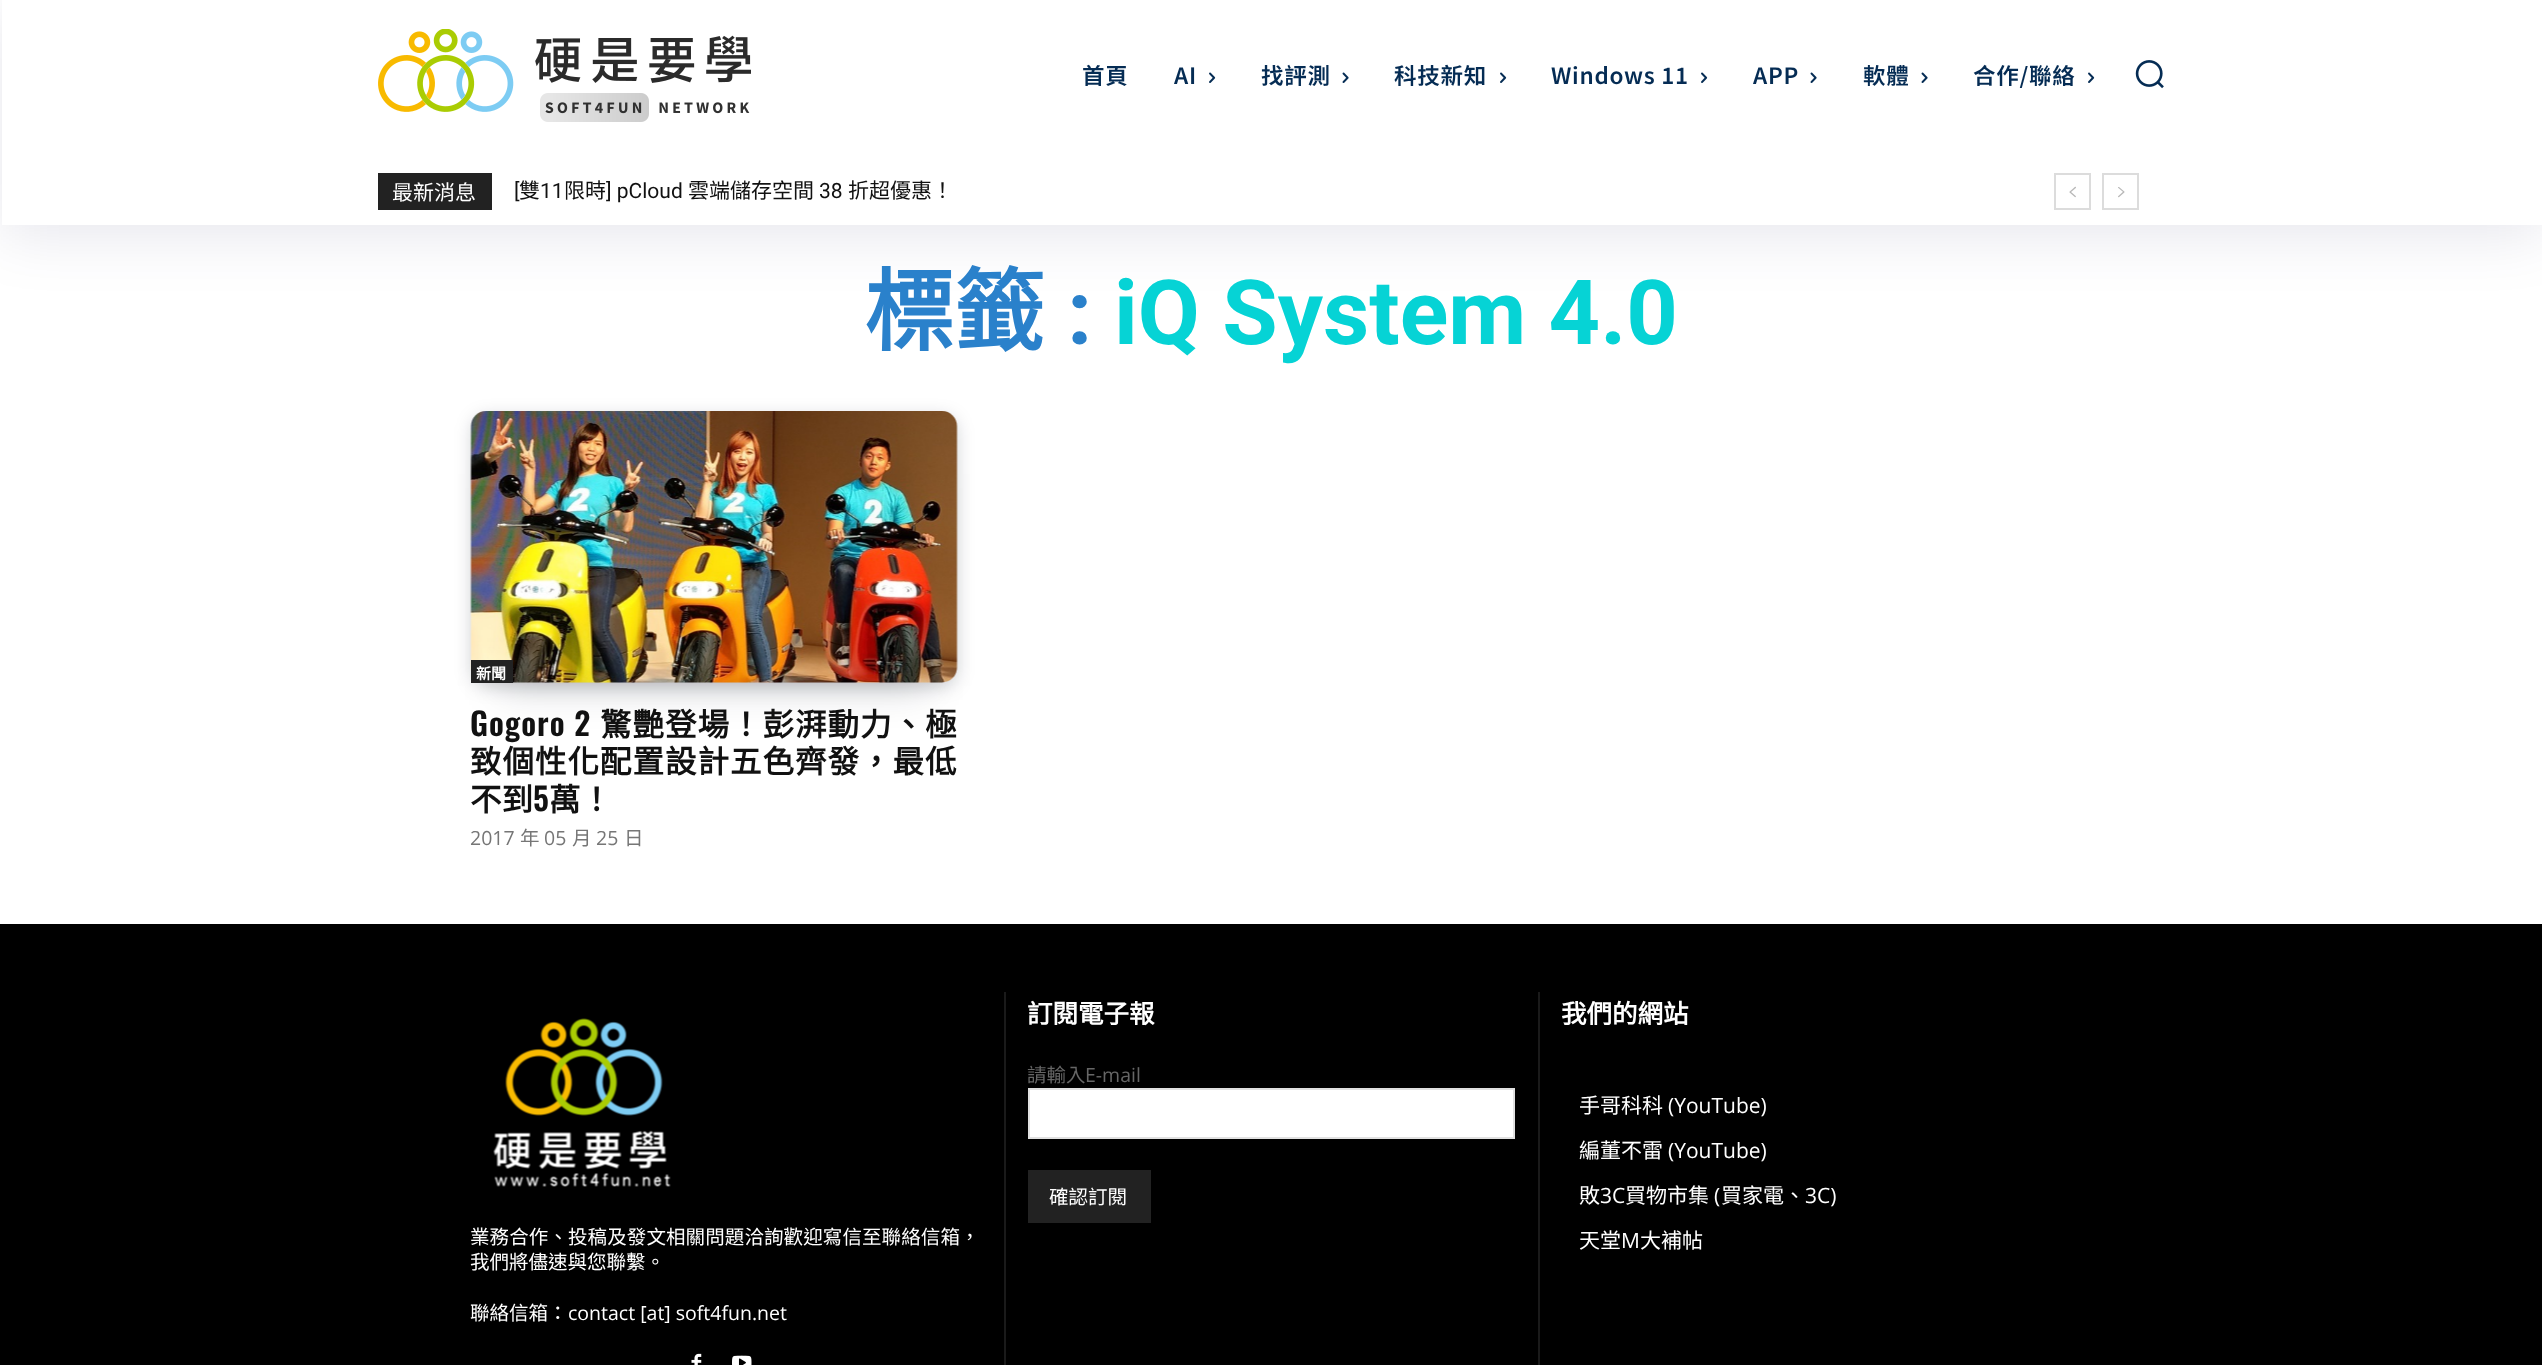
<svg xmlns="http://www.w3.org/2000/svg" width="2542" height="1365">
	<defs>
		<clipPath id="clip1"><path d="M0 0H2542V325H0ZM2 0H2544V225H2Z" clip-rule="evenodd" /></clipPath>
	</defs>
	<rect width="100%" height="100%" fill="#FFFFFF" />
	<image x="378" y="29" width="373" height="93" href="assets/img1.png" />
	<rect x="378" y="173" width="114" height="37" fill="#222222" />
	<rect x="2055" y="174" width="35" height="35" fill="none" stroke="#DCDCDC" stroke-width="2" />
	<image x="2069" y="186" width="7" height="12" href="assets/img5.png" />
	<rect x="2103" y="174" width="35" height="35" fill="none" stroke="#DCDCDC" stroke-width="2" />
	<image x="2118" y="187" width="7" height="11" href="assets/img6.png" />
	<g clip-path="url(#clip1)">
		<rect x="2" y="9" width="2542" height="225" fill="#020247" fill-opacity="0.1" filter="blur(30px)" />
	</g>
	<g font-family="Noto Sans TC" font-size="22.5" font-weight="600" letter-spacing="0.75" fill="#052C54">
		<text x="1082" y="84">首頁</text>
		<text x="1174" y="84">AI</text>
	</g>
	<image x="1209" y="72" width="7" height="11" href="assets/img2.png" />
	<text x="1261" y="84" font-family="Noto Sans TC" font-size="22.5" font-weight="600" letter-spacing="0.75" fill="#052C54">找評測</text>
	<image x="1342" y="72" width="7" height="11" href="assets/img3.png" />
	<text x="1394" y="84" font-family="Noto Sans TC" font-size="22.5" font-weight="600" letter-spacing="0.75" fill="#052C54">科技新知</text>
	<image x="1500" y="72" width="7" height="11" href="assets/img2.png" />
	<text x="1551" y="84" font-family="Noto Sans TC" font-size="22.5" font-weight="600" letter-spacing="0.75" fill="#052C54">Windows 11</text>
	<image x="1701" y="72" width="7" height="11" href="assets/img2.png" />
	<text x="1753" y="84" font-family="Noto Sans TC" font-size="22.5" font-weight="600" letter-spacing="0.75" fill="#052C54">APP</text>
	<image x="1810" y="72" width="7" height="11" href="assets/img3.png" />
	<text x="1863" y="84" font-family="Noto Sans TC" font-size="22.5" font-weight="600" letter-spacing="0.75" fill="#052C54">軟體</text>
	<image x="1921" y="72" width="7" height="11" href="assets/img3.png" />
	<text x="1973" y="84" font-family="Noto Sans TC" font-size="22.5" font-weight="600" letter-spacing="0.75" fill="#052C54">合作/聯絡</text>
	<image x="2088" y="72" width="7" height="11" href="assets/img2.png" />
	<image x="2135" y="60" width="29" height="29" href="assets/img4.png" />
	<text x="392" y="200" font-family="Noto Sans CJK TC" font-size="21" fill="#FFFFFF">最新消息</text>
	<text x="514" y="198" font-family="Roboto" font-size="21" fill="#111111">[</text>
	<text x="519" y="198" font-family="Noto Sans CJK TC" font-size="21" fill="#111111">雙</text>
	<text x="540" y="198" font-family="Roboto" font-size="21" fill="#111111">11</text>
	<text x="564" y="198" font-family="Noto Sans CJK TC" font-size="21" fill="#111111">限時</text>
	<text x="606" y="198" font-family="Roboto" font-size="21" fill="#111111">] pCloud</text>
	<text x="688" y="198" font-family="Noto Sans CJK TC" font-size="21" fill="#111111">雲端儲存空間</text>
	<text x="819" y="198" font-family="Roboto" font-size="21" fill="#111111">38</text>
	<text x="848" y="198" font-family="Noto Sans CJK TC" font-size="21" fill="#111111">折超優惠！</text>
	<text x="864" y="344" font-family="Noto Sans CJK TC" font-size="90" font-weight="700" fill="#2A81CB">標籤</text>
	<text x="1067" y="344" font-family="Roboto" font-size="90" font-weight="700" fill="#2A81CB">:</text>
	<text x="1114" y="344" font-family="Roboto" font-size="90" font-weight="700" fill="#06D3D5">iQ System 4.0</text>
	<image x="472" y="411" width="484" height="271" href="assets/img8.png" />
	<rect x="501" y="474" width="426" height="212" fill="#070A19" fill-opacity="0.2" filter="blur(20px)" />
	<rect x="473" y="417" width="483" height="269" rx="14" fill="#070A19" fill-opacity="0.2" filter="blur(9px)" />
	<image x="470" y="411" width="488" height="272" href="assets/img7.png" />
	<rect x="471" y="660" width="42" height="23" fill="#222222" />
	<text x="476" y="679" font-family="Noto Sans CJK TC" font-size="15" font-weight="700" fill="#FFFFFF">新聞</text>
	<text x="470" y="736" font-family="Oswald" font-size="31.5" font-weight="600" letter-spacing="1" fill="#111111">Gogoro 2</text>
	<g font-family="Noto Sans CJK TC" font-size="31.5" font-weight="700" letter-spacing="1" fill="#111111">
		<text x="600" y="736">驚艷登場！彭湃動力、極</text>
		<text x="470" y="773">致個性化配置設計五色齊發，最低</text>
	</g>
	<text x="470" y="811" font-family="Noto Sans CJK TC" font-size="31.5" font-weight="700" fill="#111111">不到</text>
	<text x="533" y="811" font-family="Oswald" font-size="31.5" font-weight="600" fill="#111111">5</text>
	<text x="549" y="811" font-family="Noto Sans CJK TC" font-size="31.5" font-weight="700" fill="#111111">萬！</text>
	<text x="470" y="845" font-family="Open Sans" font-size="19.5" fill="#767676">2017</text>
	<text x="520" y="845" font-family="Noto Sans CJK TC" font-size="19.5" fill="#767676">年</text>
	<text x="544" y="845" font-family="Open Sans" font-size="19.5" fill="#767676">05</text>
	<text x="572" y="845" font-family="Noto Sans CJK TC" font-size="19.5" fill="#767676">月</text>
	<text x="596" y="845" font-family="Open Sans" font-size="19.5" fill="#767676">25</text>
	<text x="624" y="845" font-family="Noto Sans CJK TC" font-size="19.5" fill="#767676">日</text>
	<rect x="0" y="924" width="2542" height="441" fill="#000000" />
	<rect x="1538" y="992" width="2" height="373" fill="#1A1A1A" />
	<text x="1027" y="1023" font-family="Noto Sans CJK TC" font-size="25.5" font-weight="700" fill="#FFFFFF">訂閱電子報</text>
	<text x="1027" y="1082" font-family="Noto Sans CJK TC" font-size="19.5" fill="#666666">請輸入</text>
	<text x="1085" y="1082" font-family="Open Sans" font-size="19.5" fill="#666666">E-mail</text>
	<rect x="1029" y="1089" width="485" height="49" fill="#FFFFFF" stroke="#E1E1E1" stroke-width="2" />
	<rect x="1028" y="1170" width="123" height="53" fill="#222222" />
	<text x="1049" y="1204" font-family="Noto Sans CJK TC" font-size="19.5" fill="#FFFFFF">確認訂閱</text>
	<text x="1561" y="1023" font-family="Noto Sans CJK TC" font-size="25.5" font-weight="700" fill="#FFFFFF">我們的網站</text>
	<text x="1579" y="1113" font-family="Noto Sans CJK TC" font-size="21" fill="#FFFFFF">手哥科科</text>
	<text x="1668" y="1113" font-family="Open Sans" font-size="21" fill="#FFFFFF">(YouTube)</text>
	<text x="1579" y="1158" font-family="Noto Sans CJK TC" font-size="21" fill="#FFFFFF">編董不雷</text>
	<text x="1668" y="1158" font-family="Open Sans" font-size="21" fill="#FFFFFF">(YouTube)</text>
	<text x="1579" y="1203" font-family="Noto Sans CJK TC" font-size="21" fill="#FFFFFF">敗</text>
	<text x="1600" y="1203" font-family="Open Sans" font-size="21" fill="#FFFFFF">3C</text>
	<text x="1625" y="1203" font-family="Noto Sans CJK TC" font-size="21" fill="#FFFFFF">買物市集</text>
	<text x="1714" y="1203" font-family="Open Sans" font-size="21" fill="#FFFFFF">(</text>
	<text x="1721" y="1203" font-family="Noto Sans CJK TC" font-size="21" fill="#FFFFFF">買家電、</text>
	<text x="1805" y="1203" font-family="Open Sans" font-size="21" fill="#FFFFFF">3C)</text>
	<text x="1579" y="1248" font-family="Noto Sans CJK TC" font-size="21" fill="#FFFFFF">天堂</text>
	<text x="1621" y="1248" font-family="Open Sans" font-size="21" fill="#FFFFFF">M</text>
	<text x="1640" y="1248" font-family="Noto Sans CJK TC" font-size="21" fill="#FFFFFF">大補帖</text>
	<rect x="1004" y="992" width="2" height="373" fill="#1A1A1A" />
	<image x="493" y="1018" width="178" height="169" href="assets/img9.png" />
	<text x="470" y="1244" font-family="Noto Sans CJK TC" font-size="19.5" letter-spacing="0.1" fill="#FFFFFF">業務合作、投稿及發文相關問題洽詢歡迎寫信至聯絡信箱，</text>
	<g font-family="Noto Sans CJK TC" font-size="19.5" fill="#FFFFFF">
		<text x="470" y="1269">我們將儘速與您聯繫。</text>
		<text x="470" y="1320">聯絡信箱：</text>
	</g>
	<text x="568" y="1320" font-family="Open Sans" font-size="19.5" fill="#FFFFFF">contact [at] soft4fun.net</text>
	<image x="691" y="1353" width="11" height="12" href="assets/img10.png" />
	<image x="732" y="1355" width="20" height="10" href="assets/img11.png" />
</svg>
